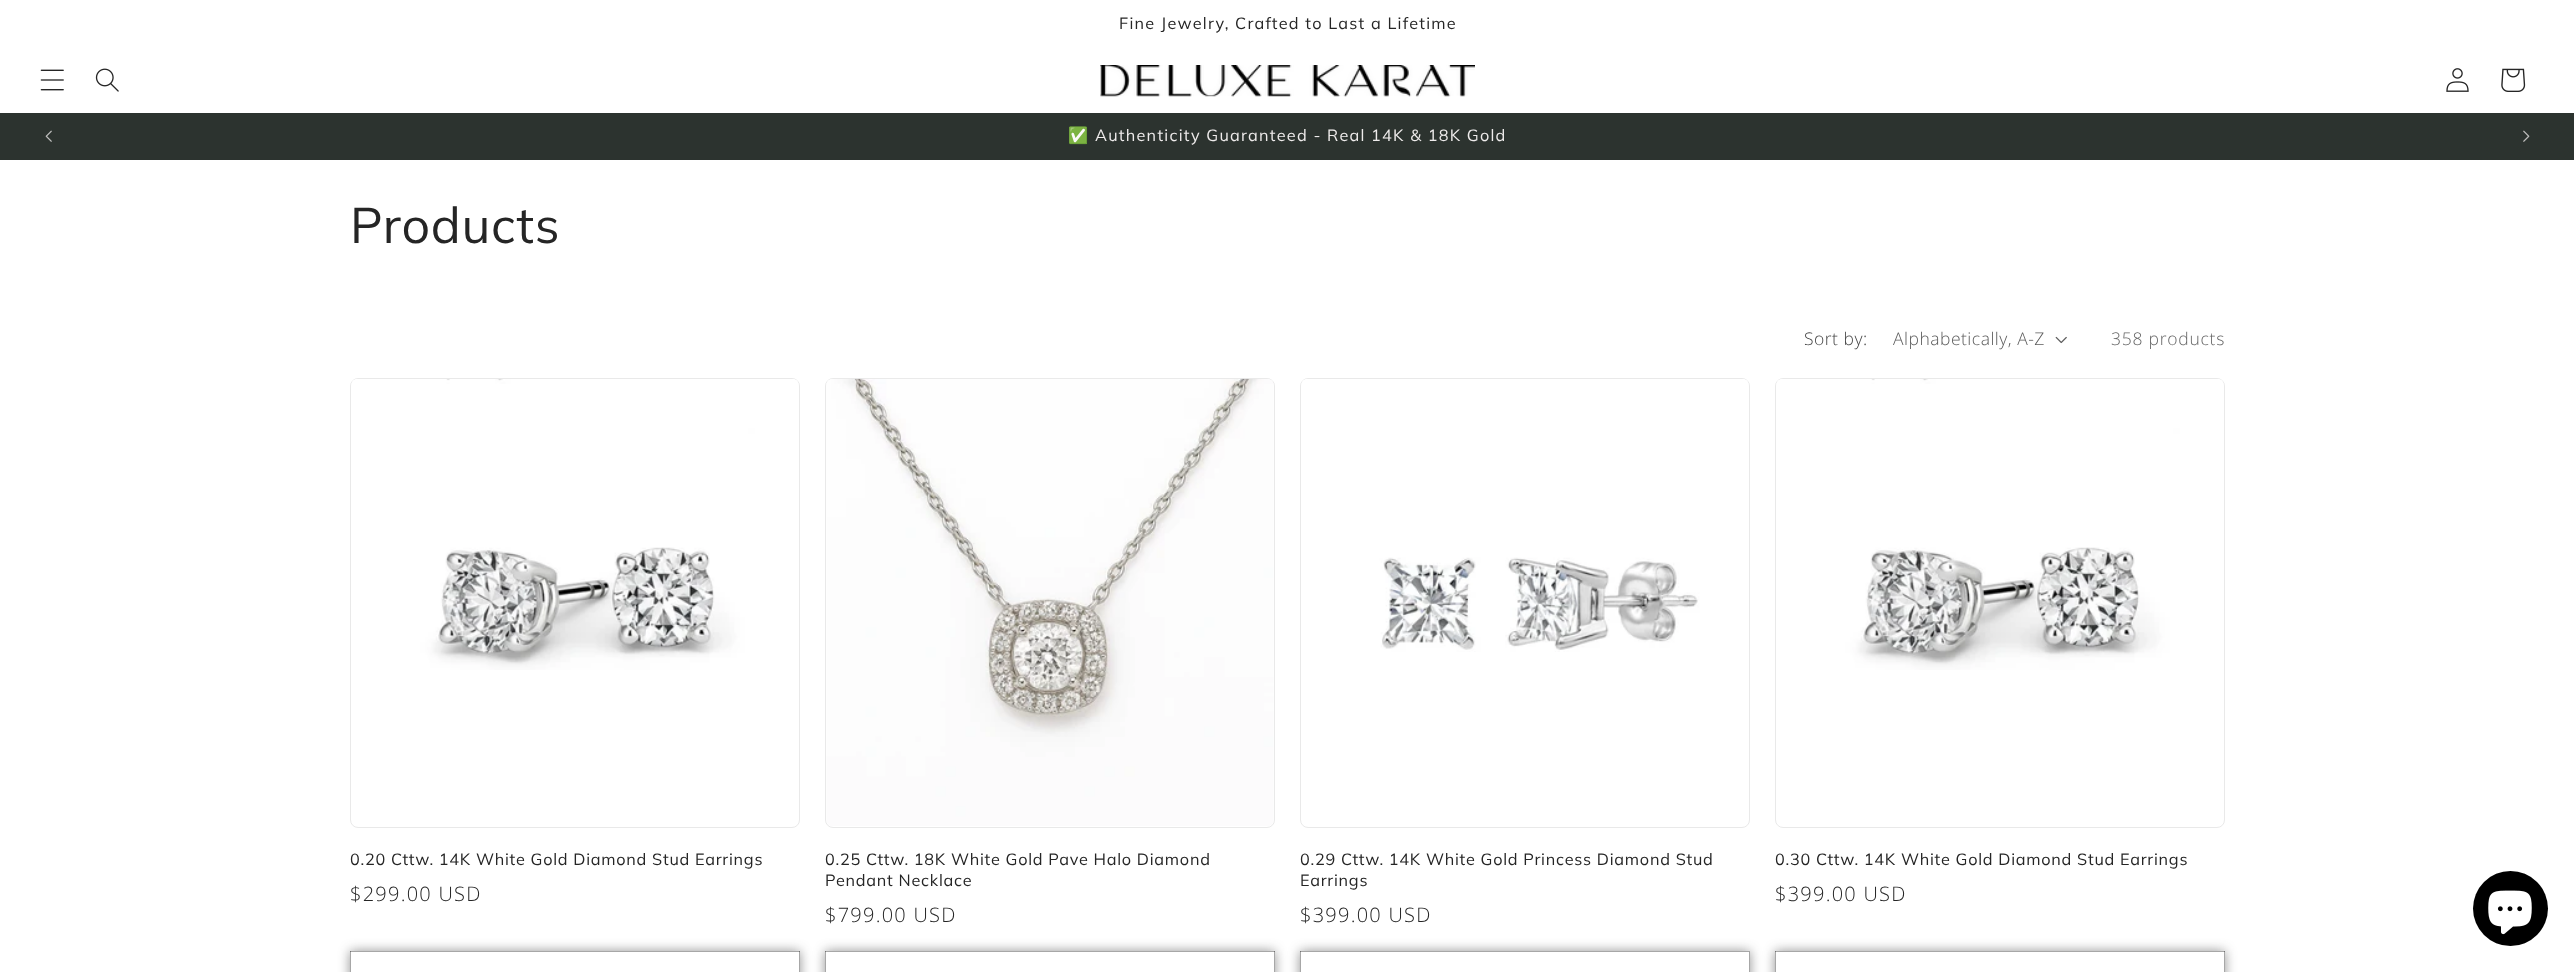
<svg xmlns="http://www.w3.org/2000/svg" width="2574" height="972">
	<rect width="100%" height="100%" fill="#2C332F" />
	<rect x="0" y="0" width="2574" height="113" fill="#FFFFFF" />
	<image x="40" y="69" width="24" height="22" href="assets/img1.png" />
	<image x="95" y="68" width="24" height="24" href="assets/img2.png" />
	<image x="1100" y="65" width="375" height="32" href="assets/img3.png" />
	<image x="2446" y="68" width="23" height="24" href="assets/img4.png" />
	<image x="2501" y="68" width="25" height="24" href="assets/img5.png" />
	<text x="1119" y="29" font-family="Muli" font-size="16.25" letter-spacing="1.25" fill="#252525">Fine Jewelry, Crafted to Last a Lifetime</text>
	<image x="45" y="130" width="7" height="12" href="assets/img6.png" />
	<text x="1068" y="141" font-family="Noto Color Emoji" font-size="16.25" letter-spacing="1.25" fill="#EFECEC">✅</text>
	<text x="1095" y="141" font-family="Muli" font-size="16.25" letter-spacing="1.25" fill="#EFECEC">Authenticity Guaranteed - Real 14K &amp; 18K Gold</text>
	<image x="2523" y="130" width="7" height="12" href="assets/img7.png" />
	<rect x="0" y="160" width="2574" height="812" fill="#FFFFFF" />
	<text x="350" y="243" font-family="Muli" font-size="50" letter-spacing="0.75" fill="#252525">Products</text>
	<text x="1804" y="345" font-family="Open Sans" font-size="17.5" font-weight="300" letter-spacing="0.5" fill="#464646">Sort by:</text>
	<text x="1893" y="345" font-family="Open Sans" font-size="17.5" font-weight="300" letter-spacing="0.5" fill="#5C5C5C">Alphabetically, A-Z</text>
	<image x="2055" y="336" width="12" height="8" href="assets/img8.png" />
	<text x="2111" y="345" font-family="Open Sans" font-size="17.5" font-weight="300" letter-spacing="0.75" fill="#666666">358 products</text>
	<rect x="350.5" y="378.5" width="449" height="449" rx="7.5" fill="none" stroke="#E9E9E9" />
	<image x="351" y="379" width="448" height="291" href="assets/img9.png" />
	<text x="350" y="865" font-family="Muli" font-size="16.25" letter-spacing="0.75" fill="#252525">0.20 Cttw. 14K White Gold Diamond Stud Earrings</text>
	<text x="350" y="901" font-family="Open Sans" font-size="20" font-weight="300" letter-spacing="1.25" fill="#252525">$299.00 USD</text>
	<rect x="350" y="951" width="450" height="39" fill="#252525" fill-opacity="0.5" filter="blur(6px)" />
	<rect x="350" y="951" width="450" height="21" fill="#FFFFFF" />
	<rect x="350.2" y="951.2" width="449.6" height="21.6" fill="none" stroke="#252525" stroke-width="0.4" />
	<rect x="825.5" y="378.5" width="449" height="449" rx="7.5" fill="none" stroke="#E9E9E9" />
	<image x="826" y="378" width="448" height="448" href="assets/img10.png" />
	<g font-family="Muli" font-size="16.25" letter-spacing="0.75" fill="#252525">
		<text x="825" y="865">0.25 Cttw. 18K White Gold Pave Halo Diamond</text>
		<text x="825" y="886">Pendant Necklace</text>
	</g>
	<text x="825" y="922" font-family="Open Sans" font-size="20" font-weight="300" letter-spacing="1.25" fill="#252525">$799.00 USD</text>
	<rect x="825" y="951" width="450" height="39" fill="#252525" fill-opacity="0.5" filter="blur(6px)" />
	<rect x="825" y="951" width="450" height="21" fill="#FFFFFF" />
	<rect x="825.2" y="951.2" width="449.6" height="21.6" fill="none" stroke="#252525" stroke-width="0.4" />
	<rect x="1300.5" y="378.5" width="449" height="449" rx="7.5" fill="none" stroke="#E9E9E9" />
	<image x="1301" y="379" width="448" height="273" href="assets/img11.png" />
	<g font-family="Muli" font-size="16.25" letter-spacing="0.75" fill="#252525">
		<text x="1300" y="865">0.29 Cttw. 14K White Gold Princess Diamond Stud</text>
		<text x="1300" y="886">Earrings</text>
	</g>
	<text x="1300" y="922" font-family="Open Sans" font-size="20" font-weight="300" letter-spacing="1.25" fill="#252525">$399.00 USD</text>
	<rect x="1300" y="951" width="450" height="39" fill="#252525" fill-opacity="0.5" filter="blur(6px)" />
	<rect x="1300" y="951" width="450" height="21" fill="#FFFFFF" />
	<rect x="1300.2" y="951.2" width="449.6" height="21.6" fill="none" stroke="#252525" stroke-width="0.4" />
	<rect x="1775.5" y="378.5" width="449" height="449" rx="7.5" fill="none" stroke="#E9E9E9" />
	<image x="1776" y="379" width="448" height="291" href="assets/img9.png" />
	<text x="1775" y="865" font-family="Muli" font-size="16.25" letter-spacing="0.75" fill="#252525">0.30 Cttw. 14K White Gold Diamond Stud Earrings</text>
	<text x="1775" y="901" font-family="Open Sans" font-size="20" font-weight="300" letter-spacing="1.25" fill="#252525">$399.00 USD</text>
	<rect x="1775" y="951" width="450" height="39" fill="#252525" fill-opacity="0.5" filter="blur(6px)" />
	<rect x="1775" y="951" width="450" height="21" fill="#FFFFFF" />
	<rect x="1775.2" y="951.2" width="449.6" height="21.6" fill="none" stroke="#252525" stroke-width="0.4" />
	<circle cx="2510.5" cy="908.5" r="37.5" fill="#000000" />
	<image x="2488" y="890" width="44" height="45" href="assets/img12.png" />
</svg>
